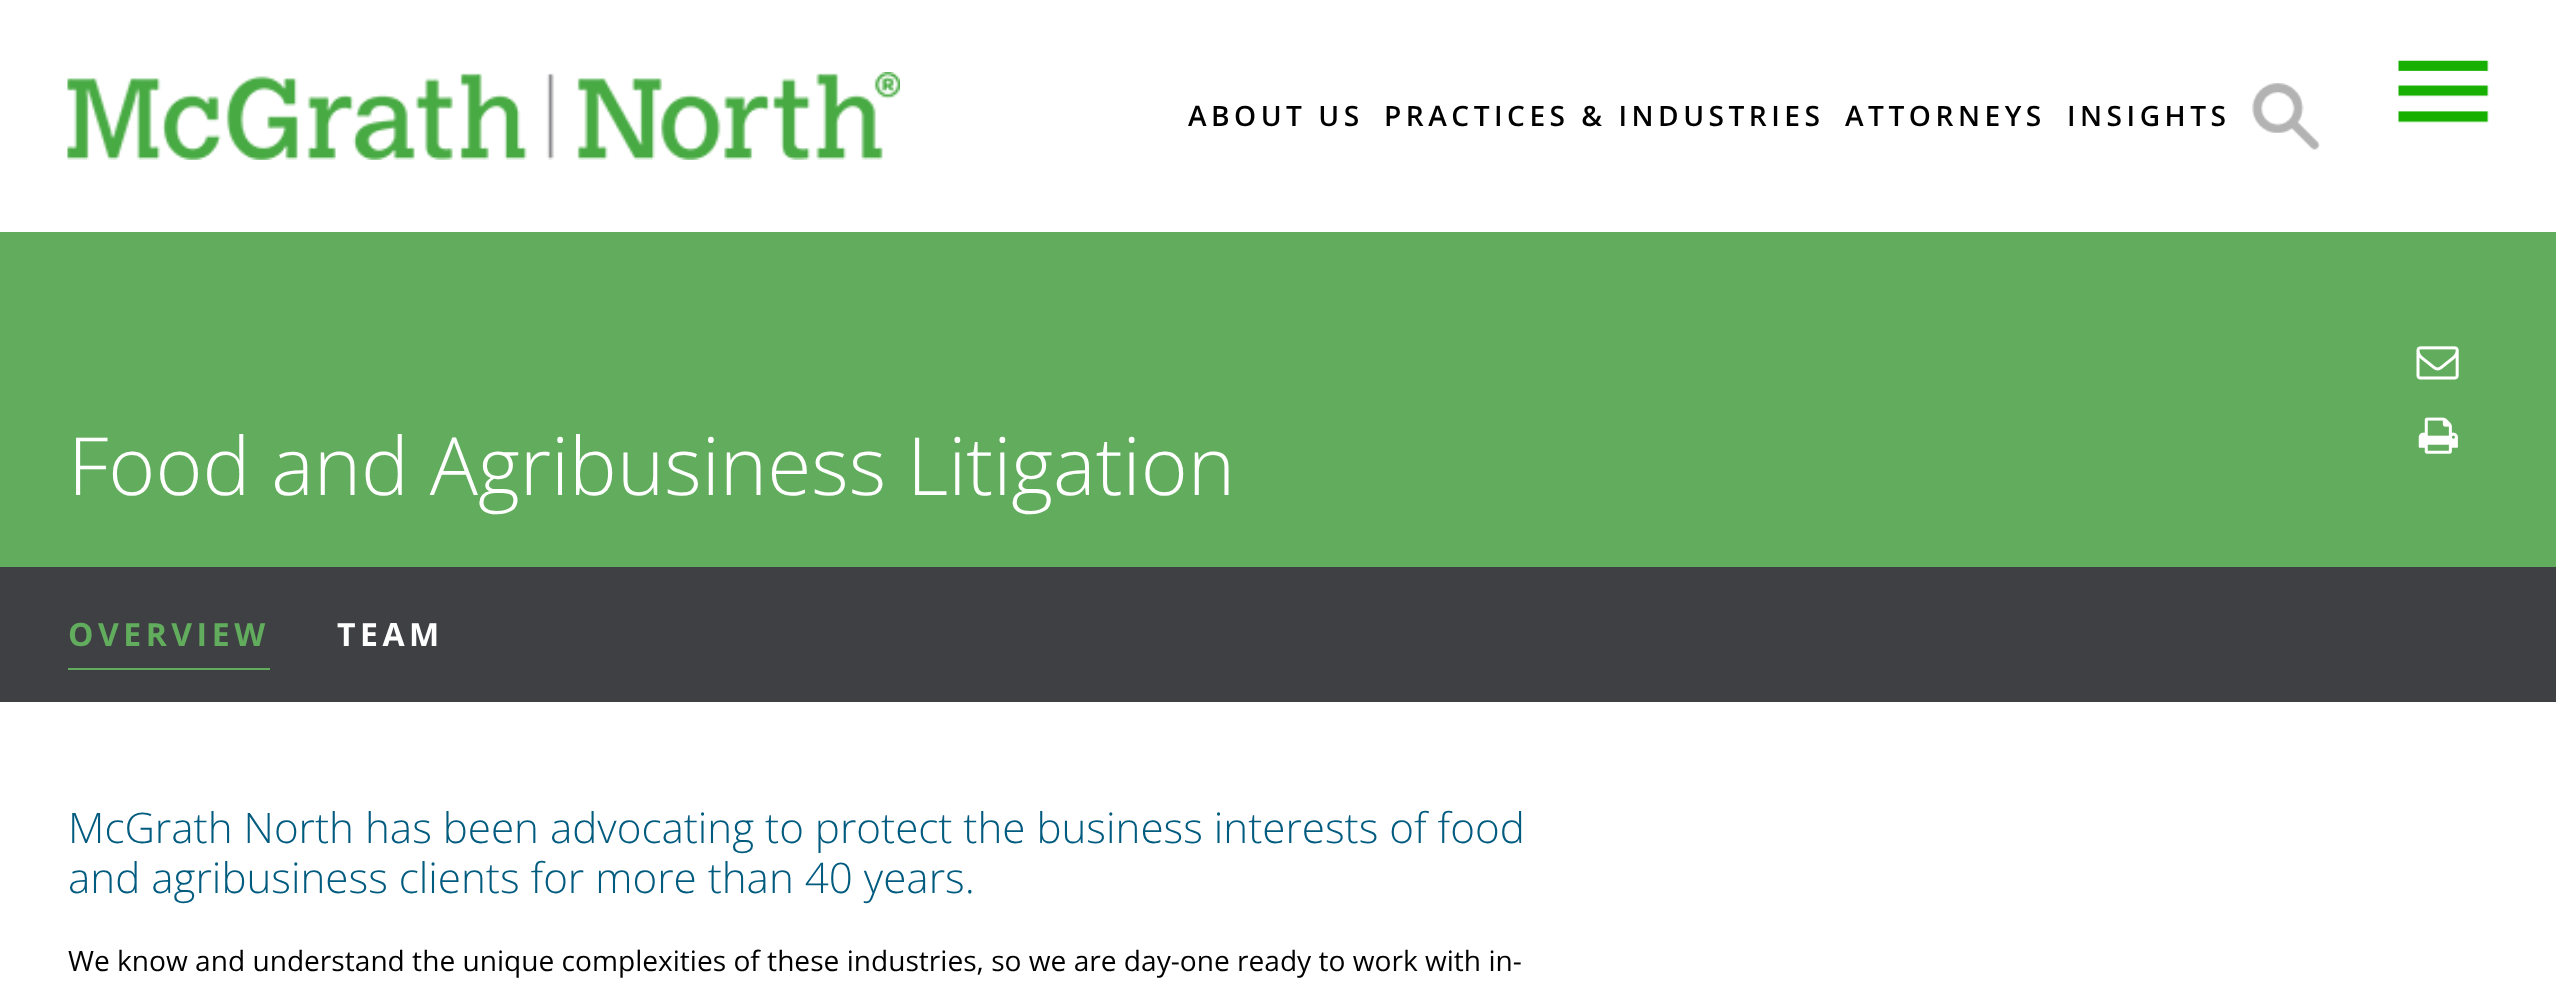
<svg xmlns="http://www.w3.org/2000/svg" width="2556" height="1007">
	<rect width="100%" height="100%" fill="#FFFFFF" />
	<image x="67" y="72" width="833" height="88" href="assets/img1.png" />
	<g font-family="Open Sans" font-size="28.12" font-weight="600" letter-spacing="4.5" fill="#000000">
		<text x="1188" y="126">ABOUT US</text>
		<text x="1384" y="126">PRACTICES &amp; INDUSTRIES</text>
		<text x="1845" y="126">ATTORNEYS</text>
		<text x="2067" y="126">INSIGHTS</text>
	</g>
	<image x="2252" y="83" width="68" height="67" href="assets/img2.png" />
	<image x="2398" y="60" width="91" height="63" href="assets/img3.png" />
	<rect x="0" y="232" width="2556" height="335" fill="#62AC5D" />
	<image x="2416" y="346" width="43" height="34" href="assets/img4.png" />
	<image x="2418" y="417" width="40" height="37" href="assets/img5.png" />
	<text x="68" y="495" font-family="Open Sans" font-size="80.3" font-weight="300" fill="#FFFFFF">Food and Agribusiness Litigation</text>
	<rect x="0" y="567" width="2556" height="135" fill="#3E4044" />
	<rect x="68" y="668" width="202" height="2" fill="#62AC5D" />
	<text x="68" y="646" font-family="Open Sans" font-size="32" font-weight="700" letter-spacing="4.5" fill="#62AC5D">OVERVIEW</text>
	<text x="337" y="646" font-family="Open Sans" font-size="32" font-weight="700" letter-spacing="4.5" fill="#FFFFFF">TEAM</text>
	<g font-family="Open Sans" font-size="42.15" font-weight="300" fill="#005B7F">
		<text x="68" y="843">McGrath North has been advocating to protect the business interests of food</text>
		<text x="68" y="893">and agribusiness clients for more than 40 years.</text>
	</g>
	<text x="68" y="971" font-family="Open Sans" font-size="28.12" fill="#000000">We know and understand the unique complexities of these industries, so we are day-one ready to work with in-</text>
</svg>
